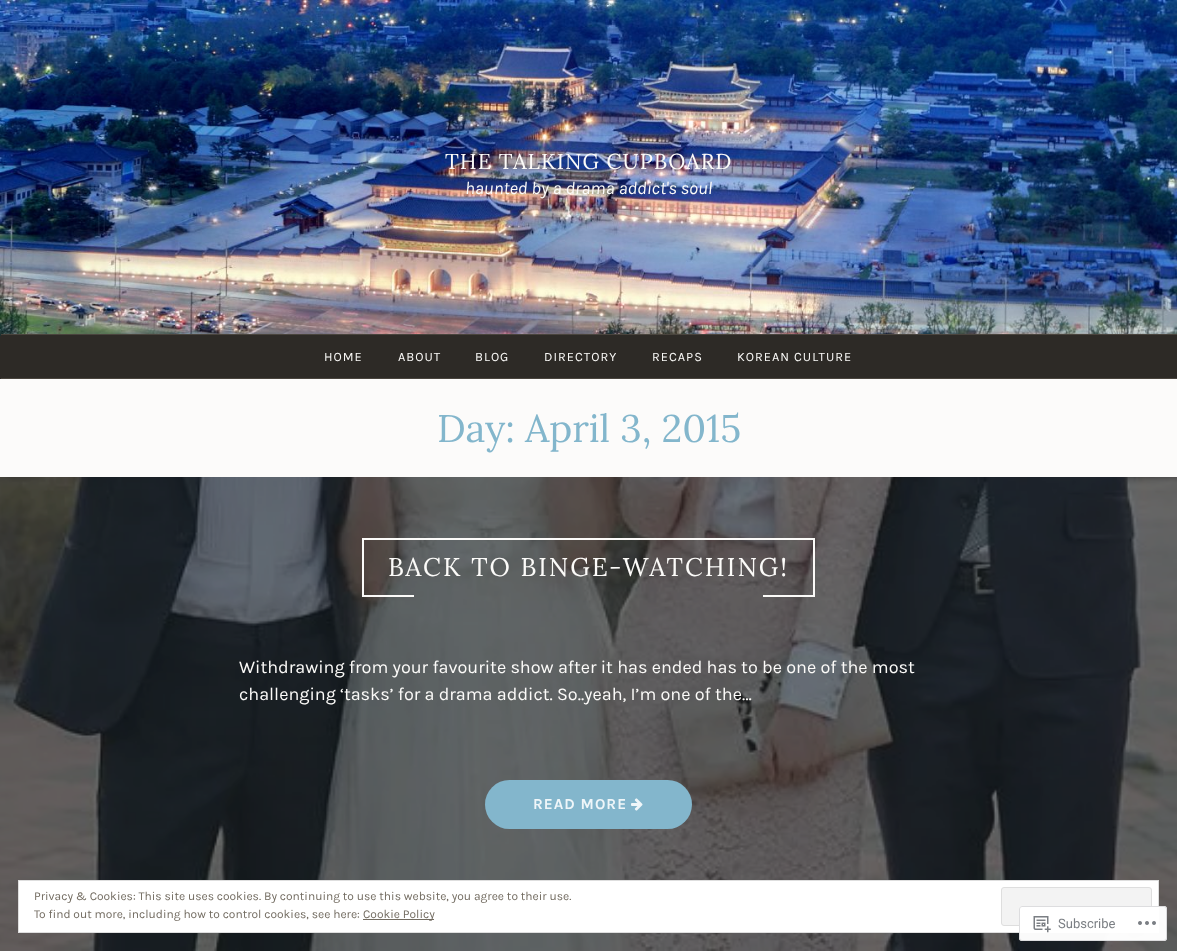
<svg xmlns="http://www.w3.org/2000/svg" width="1177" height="951">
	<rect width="100%" height="100%" fill="#FCFBFA" />
	<rect x="0" y="336" width="1" height="43" fill="#2D2A26" />
	<image x="0" y="0" width="1177" height="336" href="assets/img1.png" />
	<text x="445" y="169" font-family="Lora" font-size="21.6" letter-spacing="1" fill="#FCFBF9">THE TALKING CUPBOARD</text>
	<text x="465" y="194" font-family="Karla" font-size="18" font-style="italic" fill="#FCFBF9">haunted by a drama addict's soul</text>
	<rect x="1" y="335" width="1176" height="43" fill="#2D2A26" />
	<rect x="1" y="334" width="1176" height="1" fill="#49443D" />
	<rect x="1" y="378" width="1176" height="1" fill="#49443D" />
	<g font-family="Karla" font-size="12.75" letter-spacing="1" fill="#FCFBF9">
		<text x="324" y="361">HOME</text>
		<text x="398" y="361">ABOUT</text>
		<text x="475" y="361">BLOG</text>
		<text x="544" y="361">DIRECTORY</text>
		<text x="652" y="361">RECAPS</text>
		<text x="737" y="361">KOREAN CULTURE</text>
	</g>
	<text x="437" y="442" font-family="Lora" font-size="38.5" fill="#83B6CC">Day: April 3, 2015</text>
	<rect x="0" y="477" width="1177" height="474" fill="#1F2B30" />
	<image x="0" y="477" width="1177" height="474" href="assets/img2.png" />
	<rect x="362" y="538" width="453" height="2" fill="#FCFBF9" />
	<rect x="813" y="538" width="2" height="59" fill="#FCFBF9" />
	<rect x="362" y="538" width="2" height="59" fill="#FCFBF9" />
	<text x="388" y="576" font-family="Lora" font-size="25.6" letter-spacing="2" fill="#FCFBF9">BACK TO BINGE-WATCHING!</text>
	<rect x="364" y="595" width="50" height="2" fill="#FCFBF9" />
	<rect x="763" y="595" width="50" height="2" fill="#FCFBF9" />
	<g font-family="Karla" font-size="18" fill="#FCFBF9">
		<text x="239" y="673">Withdrawing from your favourite show after it has ended has to be one of the most</text>
		<text x="239" y="700">challenging ‘tasks’ for a drama addict. So..yeah, I’m one of the…</text>
	</g>
	<rect x="485" y="780" width="207" height="49" rx="24.5" fill="#83B6CC" />
	<text x="533" y="809" font-family="Karla" font-size="15.25" font-weight="700" letter-spacing="1" fill="#EFF6F9">READ MORE</text>
	<image x="631" y="798" width="12" height="13" href="assets/img3.png" />
	<rect x="18.5" y="880.5" width="1140" height="52" fill="#FFFFFF" stroke="#DEDEDE" />
	<text x="34" y="900" font-family="Karla" font-size="12" fill="#726B60">Privacy &amp; Cookies: This site uses cookies. By continuing to use this website, you agree to their use.</text>
	<rect x="1001.5" y="887.5" width="150" height="38" rx="2.5" fill="#F3F3F3" stroke="#DEDEDE" />
	<text x="34" y="918" font-family="Karla" font-size="12" fill="#726B60">To find out more, including how to control cookies, see here:</text>
	<rect x="363" y="919" width="71" height="1" fill="#726B60" />
	<text x="363" y="918" font-family="Karla" font-size="12" fill="#726B60">Cookie Policy</text>
	<rect x="1019" y="906" width="148" height="35" rx="3" fill="#FFFFFF" fill-opacity="0.98" />
	<rect x="1019.5" y="906.5" width="147" height="34" rx="2.5" fill="none" stroke="#DCDCDE" stroke-opacity="0.98" />
	<image x="1033" y="916" width="18" height="17" href="assets/img4.png" />
	<text x="1058" y="928" font-family="Roboto" font-size="13" fill="#7B7F84">Subscribe</text>
	<image x="1138" y="921" width="18" height="4" href="assets/img5.png" />
</svg>
